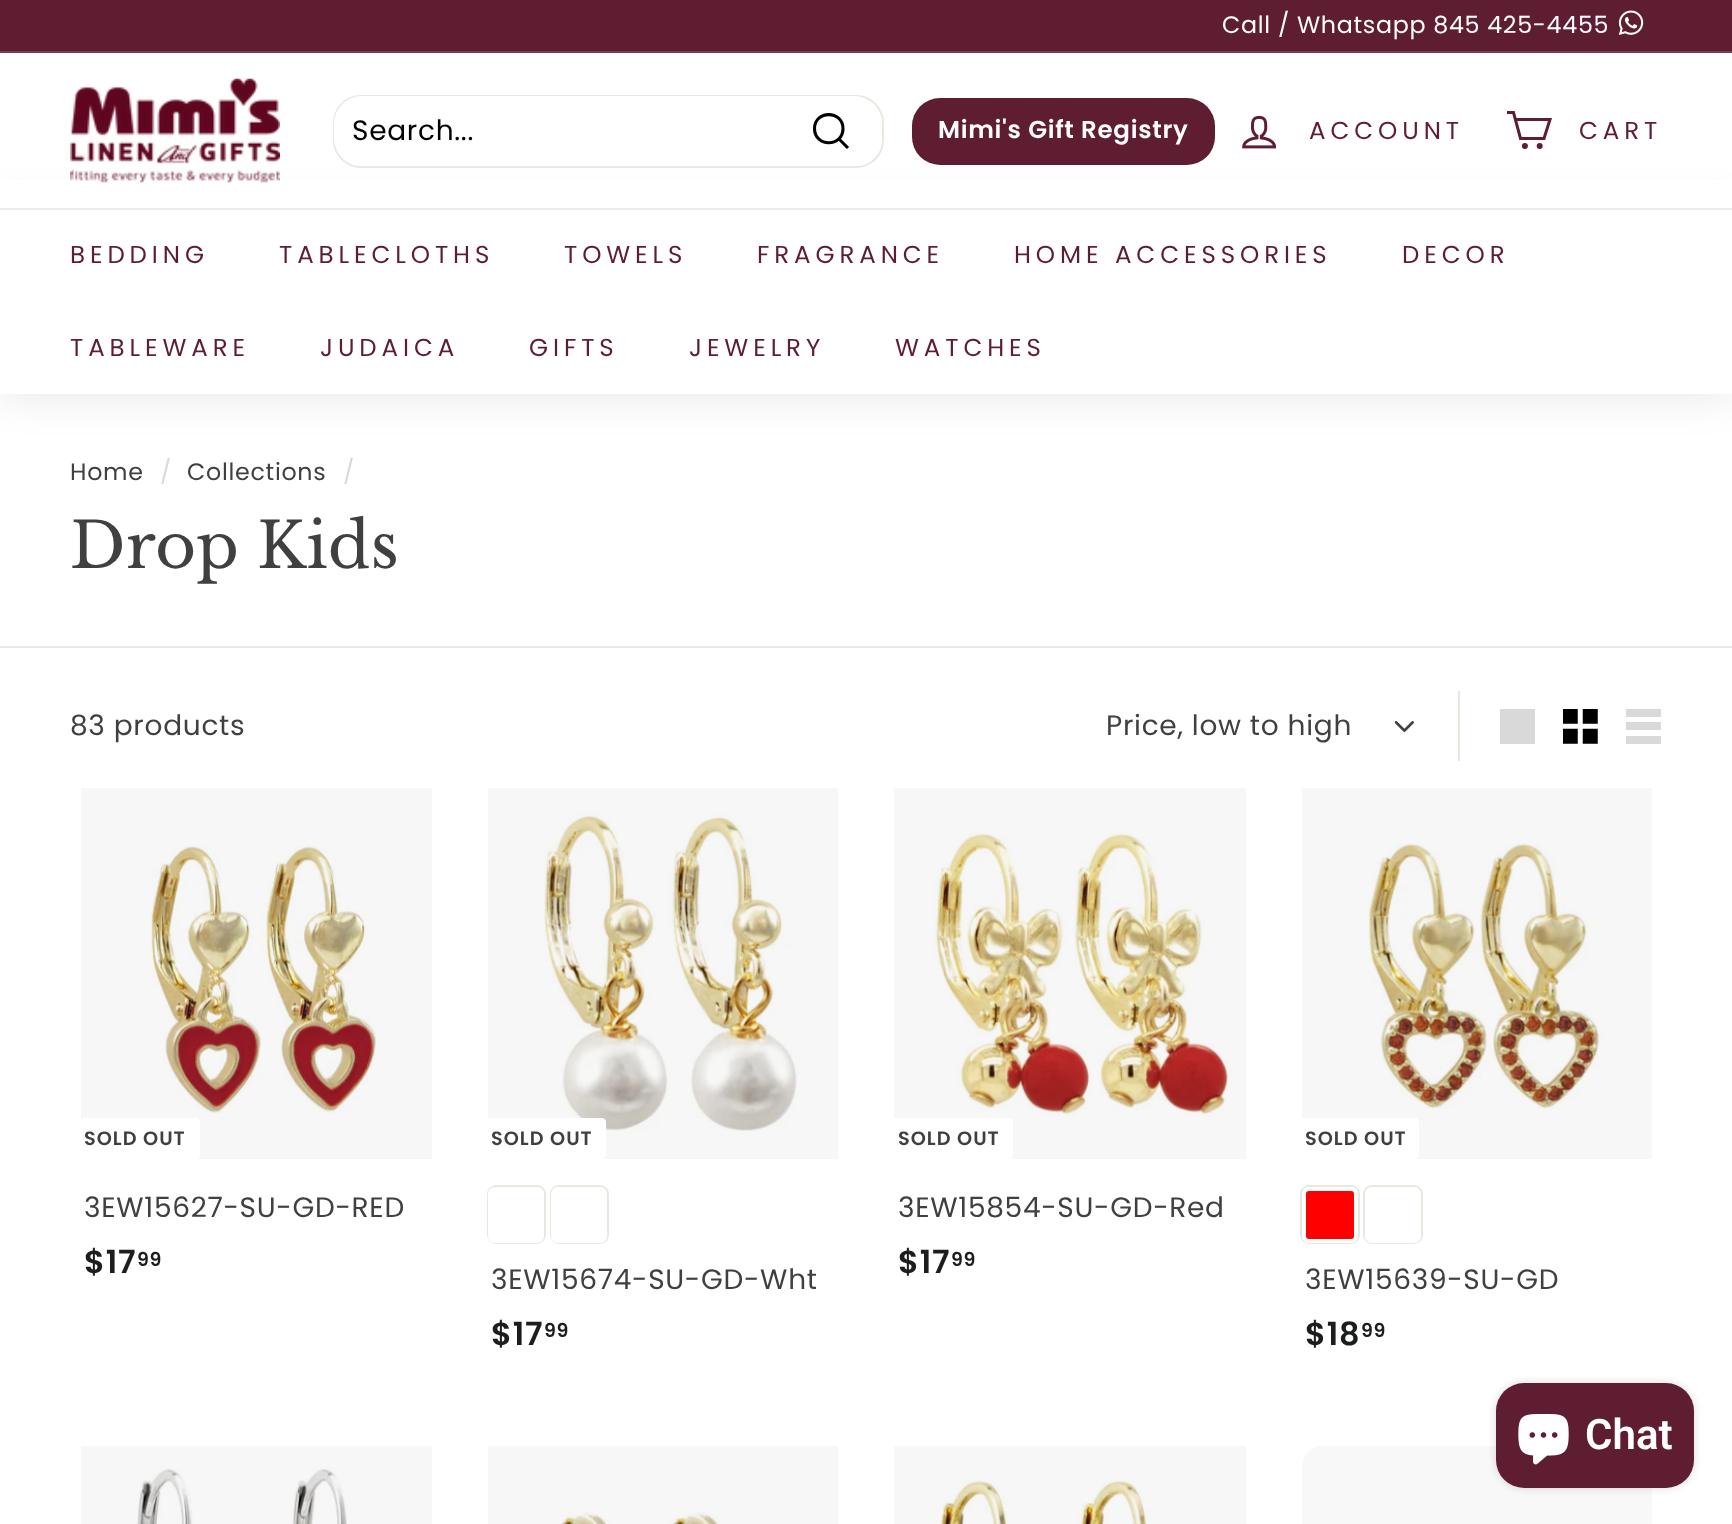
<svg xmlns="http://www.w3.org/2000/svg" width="1732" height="1524">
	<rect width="100%" height="100%" fill="#FFFFFF" />
	<rect x="0" y="0" width="1732" height="51" fill="#5F1D32" />
	<text x="1222" y="33" font-family="Poppins" font-size="23.75" letter-spacing="0.7" fill="#FFFFFF">Call / Whatsapp 845 425-4455</text>
	<image x="1618" y="10" width="26" height="25" href="assets/img1.png" />
	<rect x="0" y="51" width="1732" height="2" fill="#773F51" />
	<rect x="0" y="208" width="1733" height="186" fill="#000000" fill-opacity="0.1" filter="blur(22px)" />
	<rect x="0" y="180" width="1732" height="28" fill="#FFFFFF" />
	<image x="70" y="78" width="210" height="105" href="assets/img2.png" />
	<rect x="334" y="96" width="549" height="71" rx="27" fill="none" stroke="#E8E8E1" stroke-width="2" />
	<rect x="334" y="96" width="548" height="70" rx="28" fill="#FFFFFF" />
	<text x="352" y="140" font-family="Poppins" font-size="28" letter-spacing="0.7" fill="#000000">Search...</text>
	<path d="M843 128.5C843 147.5 814.5 147.5 814.5 128.5C814.5 110 843 110 843 128.5ZM848 148L839 139" fill="none" stroke="#000000" stroke-width="3.1" />
	<rect x="912" y="98" width="303" height="67" rx="28" fill="#5F1D32" />
	<text x="938" y="138" font-family="Poppins" font-size="24.5" font-weight="600" letter-spacing="0.7" fill="#FFFFFF">Mimi's Gift Registry</text>
	<image x="1242" y="115" width="35" height="34" href="assets/img3.png" />
	<text x="1309" y="139" font-family="Poppins" font-size="24.5" letter-spacing="4.9" fill="#5F1D32">ACCOUNT</text>
	<path d="M1515.5 119.5H1550L1544 138.5H1520.5L1513.5 112.5H1507" fill="none" stroke="#5F1D32" stroke-width="3" />
	<circle cx="1524.9" cy="145.9" r="1.5" fill="none" stroke="#5F1D32" stroke-width="3" />
	<circle cx="1539.7" cy="145.9" r="1.5" fill="none" stroke="#5F1D32" stroke-width="3" />
	<text x="1579" y="139" font-family="Poppins" font-size="24.5" letter-spacing="4.9" fill="#5F1D32">CART</text>
	<rect x="0" y="210" width="1732" height="184" fill="#FFFFFF" />
	<rect x="0" y="208" width="1732" height="2" fill="#EFE8EB" />
	<g font-family="Poppins" font-size="24.5" letter-spacing="4.9" fill="#5F1D32">
		<text x="70" y="263">BEDDING</text>
		<text x="279" y="263">TABLECLOTHS</text>
		<text x="564" y="263">TOWELS</text>
		<text x="757" y="263">FRAGRANCE</text>
		<text x="1014" y="263">HOME ACCESSORIES</text>
		<text x="1402" y="263">DECOR</text>
		<text x="70" y="356">TABLEWARE</text>
		<text x="320" y="356">JUDAICA</text>
		<text x="529" y="356">GIFTS</text>
		<text x="689" y="356">JEWELRY</text>
		<text x="895" y="356">WATCHES</text>
	</g>
	<text x="70" y="480" font-family="Poppins" font-size="23.75" letter-spacing="0.7" fill="#404040">Home</text>
	<text x="160" y="480" font-family="Poppins" font-size="23.75" letter-spacing="0.7" fill="#D9D9D9">/</text>
	<text x="187" y="480" font-family="Poppins" font-size="23.75" letter-spacing="0.7" fill="#404040">Collections</text>
	<text x="343" y="480" font-family="Poppins" font-size="23.75" letter-spacing="0.7" fill="#D9D9D9">/</text>
	<text x="70" y="568" font-family="Libre Baskerville" font-size="63" fill="#404040">Drop Kids</text>
	<rect x="0" y="646" width="1732" height="2" fill="#E8E8E1" />
	<text x="70" y="735" font-family="Poppins" font-size="28" letter-spacing="0.7" fill="#404040">83 products</text>
	<rect x="1458" y="691" width="2" height="70" fill="#E8E8E1" />
	<image x="1395" y="721" width="19" height="11" href="assets/img4.png" />
	<text x="1106" y="735" font-family="Poppins" font-size="28" letter-spacing="0.7" fill="#404040">Price, low to high</text>
	<rect x="1500" y="709" width="35" height="35" fill="#D9D9D9" />
	<image x="1563" y="709" width="35" height="35" href="assets/img5.png" />
	<path d="M1626 709H1661V717H1626ZM1626 722H1661V730H1626ZM1626 736H1661V744H1626Z" fill="#D9D9D9" />
	<image x="150" y="846" width="227" height="268" href="assets/img6.png" />
	<rect x="81" y="788" width="351" height="371" fill="#000000" fill-opacity="0.03" />
	<path d="M70 1118H196C198 1118 200 1120 200 1122V1155C200 1157 198 1159 196 1159H70Z" fill="#FFFFFF" />
	<text x="84" y="1145" font-family="Poppins" font-size="19.25" font-weight="600" letter-spacing="1" fill="#404040">SOLD OUT</text>
	<text x="84" y="1217" font-family="Poppins" font-size="28" letter-spacing="0.7" fill="#404040">3EW15627-SU-GD-RED</text>
	<text x="84" y="1273" font-family="Poppins" font-size="32" font-weight="600" letter-spacing="0.7" fill="#1C1D1D">$17</text>
	<text x="137" y="1266" font-family="Poppins" font-size="19" font-weight="600" letter-spacing="0.7" fill="#1C1D1D">99</text>
	<image x="543" y="812" width="254" height="319" href="assets/img7.png" />
	<rect x="488" y="788" width="350" height="371" fill="#000000" fill-opacity="0.03" />
	<path d="M478 1118H602C604 1118 606 1120 606 1122V1155C606 1157 604 1159 602 1159H478Z" fill="#FFFFFF" />
	<text x="491" y="1145" font-family="Poppins" font-size="19.25" font-weight="600" letter-spacing="1" fill="#404040">SOLD OUT</text>
	<rect x="488" y="1186" width="57" height="57" rx="8" fill="none" stroke="#E8E8E1" stroke-width="2" />
	<rect x="490" y="1189" width="52" height="52" rx="5" fill="none" stroke="#FFFFFF" stroke-width="4" />
	<rect x="551" y="1186" width="57" height="57" rx="8" fill="none" stroke="#E8E8E1" stroke-width="2" />
	<rect x="553" y="1189" width="52" height="52" rx="5" fill="none" stroke="#FFFFFF" stroke-width="4" />
	<text x="491" y="1289" font-family="Poppins" font-size="28" letter-spacing="0.7" fill="#404040">3EW15674-SU-GD-Wht</text>
	<text x="491" y="1345" font-family="Poppins" font-size="32" font-weight="600" letter-spacing="0.7" fill="#1C1D1D">$17</text>
	<text x="544" y="1337" font-family="Poppins" font-size="19" font-weight="600" letter-spacing="0.7" fill="#1C1D1D">99</text>
	<image x="933" y="831" width="299" height="285" href="assets/img8.png" />
	<rect x="894" y="788" width="352" height="371" fill="#000000" fill-opacity="0.03" />
	<path d="M884 1118H1009C1011 1118 1013 1120 1013 1122V1155C1013 1157 1011 1159 1009 1159H884Z" fill="#FFFFFF" />
	<text x="898" y="1145" font-family="Poppins" font-size="19.25" font-weight="600" letter-spacing="1" fill="#404040">SOLD OUT</text>
	<text x="898" y="1217" font-family="Poppins" font-size="28" letter-spacing="0.7" fill="#404040">3EW15854-SU-GD-Red</text>
	<text x="898" y="1273" font-family="Poppins" font-size="32" font-weight="600" letter-spacing="0.7" fill="#1C1D1D">$17</text>
	<text x="951" y="1266" font-family="Poppins" font-size="19" font-weight="600" letter-spacing="0.7" fill="#1C1D1D">99</text>
	<image x="1366" y="843" width="239" height="266" href="assets/img9.png" />
	<rect x="1302" y="788" width="350" height="371" fill="#000000" fill-opacity="0.03" />
	<path d="M1292 1118H1415C1417 1118 1419 1120 1419 1122V1155C1419 1157 1417 1159 1415 1159H1292Z" fill="#FFFFFF" />
	<text x="1305" y="1145" font-family="Poppins" font-size="19.25" font-weight="600" letter-spacing="1" fill="#404040">SOLD OUT</text>
	<rect x="1301" y="1186" width="58" height="57" rx="8" fill="none" stroke="#E8E8E1" stroke-width="2" />
	<rect x="1304" y="1189" width="52" height="52" rx="5" fill="#FF0000" stroke="#FFFFFF" stroke-width="4" />
	<rect x="1364" y="1186" width="58" height="57" rx="8" fill="none" stroke="#E8E8E1" stroke-width="2" />
	<rect x="1367" y="1189" width="52" height="52" rx="5" fill="none" stroke="#FFFFFF" stroke-width="4" />
	<text x="1305" y="1289" font-family="Poppins" font-size="28" letter-spacing="0.7" fill="#404040">3EW15639-SU-GD</text>
	<text x="1305" y="1345" font-family="Poppins" font-size="32" font-weight="600" letter-spacing="0.7" fill="#1C1D1D">$18</text>
	<text x="1361" y="1337" font-family="Poppins" font-size="19" font-weight="600" letter-spacing="0.7" fill="#1C1D1D">99</text>
	<image x="137" y="1468" width="210" height="56" href="assets/img10.png" />
	<rect x="81" y="1446" width="351" height="78" fill="#000000" fill-opacity="0.03" />
	<image x="561" y="1512" width="158" height="12" href="assets/img11.png" />
	<rect x="488" y="1446" width="350" height="78" fill="#000000" fill-opacity="0.03" />
	<image x="940" y="1480" width="209" height="44" href="assets/img12.png" />
	<rect x="894" y="1446" width="352" height="78" fill="#000000" fill-opacity="0.03" />
	<rect x="1302" y="1446" width="350" height="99" rx="21" fill="#F8F8F8" />
	<rect x="1496" y="1383" width="198" height="105" rx="28" fill="#000000" fill-opacity="0.15" filter="blur(4.5px)" />
	<rect x="1496" y="1383" width="198" height="105" rx="28" fill="#5F1D32" />
	<image x="1518" y="1414" width="51" height="51" href="assets/img13.png" />
	<text x="1585" y="1449" font-family="Roboto" font-size="42" font-weight="600" fill="#FFFFFF">Chat</text>
</svg>
